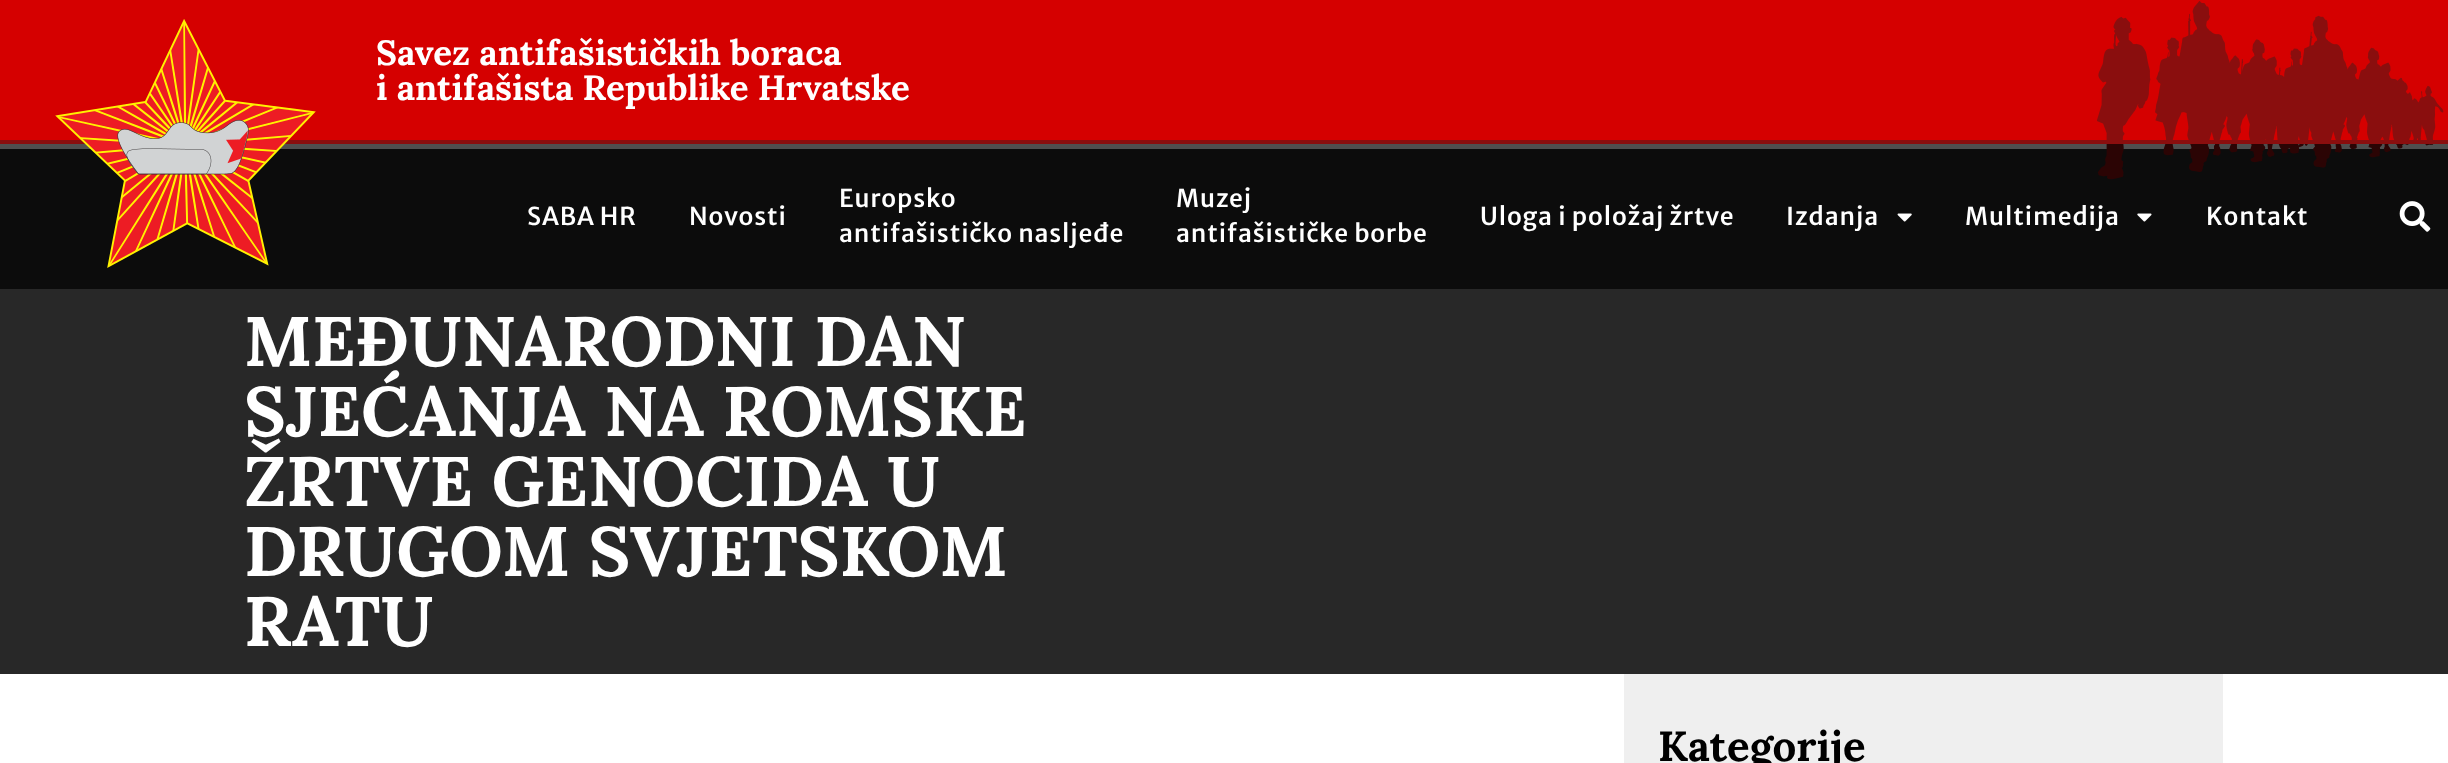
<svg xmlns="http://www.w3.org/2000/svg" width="2448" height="763">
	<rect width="100%" height="100%" fill="#FFFFFF" />
	<rect x="0" y="0" width="2448" height="140" fill="#D50000" />
	<g font-family="Lora" font-size="35" font-weight="700" fill="#FFFFFF">
		<text x="376" y="65">Savez antifašističkih boraca</text>
		<text x="376" y="100">i antifašista Republike Hrvatske</text>
	</g>
	<rect x="0" y="149" width="2448" height="525" fill="#282828" />
	<image x="2097" y="1" width="347" height="179" href="assets/img1.png" />
	<rect x="0" y="144" width="2448" height="145" fill="#000000" fill-opacity="0.69" />
	<rect x="0" y="140" width="2448" height="4" fill="#8A0E0E" />
	<image x="55" y="19" width="261" height="249" href="assets/img2.png" />
	<g font-family="Merriweather Sans" font-size="24.5" font-weight="500" letter-spacing="0.9" fill="#FFFFFF">
		<text x="527" y="225">SABA HR</text>
		<text x="689" y="225">Novosti</text>
		<text x="839" y="207">Europsko</text>
		<text x="839" y="242">antifašističko nasljeđe</text>
		<text x="1176" y="207">Muzej</text>
		<text x="1176" y="242">antifašističke borbe</text>
		<text x="1480" y="225">Uloga i položaj žrtve</text>
		<text x="1786" y="225">Izdanja</text>
	</g>
	<image x="1897" y="213" width="15" height="9" href="assets/img3.png" />
	<text x="1965" y="225" font-family="Merriweather Sans" font-size="24.5" font-weight="500" letter-spacing="0.9" fill="#FFFFFF">Multimedija</text>
	<image x="2137" y="213" width="15" height="9" href="assets/img4.png" />
	<text x="2206" y="225" font-family="Merriweather Sans" font-size="24.5" font-weight="500" letter-spacing="0.9" fill="#FFFFFF">Kontakt</text>
	<image x="2399" y="201" width="32" height="31" href="assets/img5.png" />
	<g font-family="Lora" font-size="70" font-weight="700" fill="#FFFFFF">
		<text x="244" y="366">MEĐUNARODNI DAN</text>
		<text x="244" y="436">SJEĆANJA NA ROMSKE</text>
		<text x="244" y="506">ŽRTVE GENOCIDA U</text>
		<text x="244" y="576">DRUGOM SVJETSKOM</text>
		<text x="244" y="646">RATU</text>
	</g>
	<rect x="1624" y="674" width="599" height="89" fill="#EFEFEF" />
	<text x="1658" y="761" font-family="Lora" font-size="42" font-weight="700" fill="#000000">Kategorije</text>
</svg>
